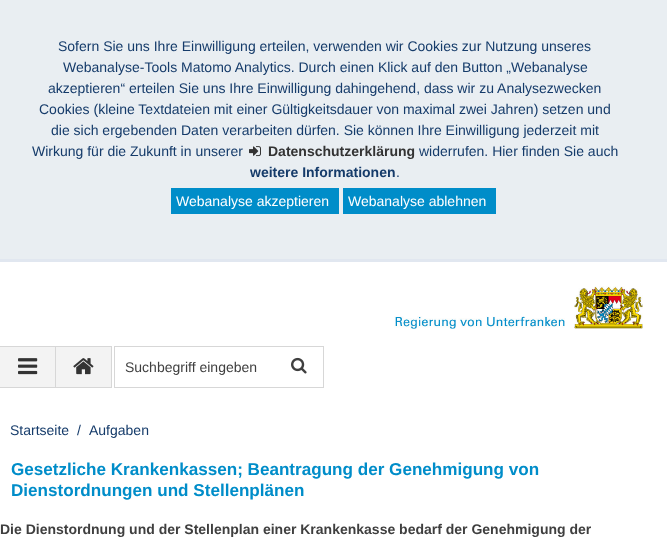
<svg xmlns="http://www.w3.org/2000/svg" width="667" height="548">
	<rect width="100%" height="100%" fill="#FFFFFF" />
	<rect x="0" y="0" width="667" height="259" fill="#E9EEF2" />
	<rect x="0" y="259" width="667" height="3" fill="#E1E7F0" />
	<g font-family="Liberation Sans" font-size="14" fill="#153B6A">
		<text x="58" y="51">Sofern Sie uns Ihre Einwilligung erteilen, verwenden wir Cookies zur Nutzung unseres</text>
		<text x="63" y="72">Webanalyse-Tools Matomo Analytics. Durch einen Klick auf den Button „Webanalyse</text>
		<text x="48" y="93">akzeptieren“ erteilen Sie uns Ihre Einwilligung dahingehend, dass wir zu Analysezwecken</text>
		<text x="39" y="114">Cookies (kleine Textdateien mit einer Gültigkeitsdauer von maximal zwei Jahren) setzen und</text>
		<text x="51" y="135">die sich ergebenden Daten verarbeiten dürfen. Sie können Ihre Einwilligung jederzeit mit</text>
		<text x="32" y="156">Wirkung für die Zukunft in unserer</text>
	</g>
	<image x="249" y="146" width="12" height="11" href="assets/img1.png" />
	<text x="268" y="156" font-family="Liberation Sans" font-size="14" font-weight="700" fill="#333333">Datenschutzerklärung</text>
	<text x="419" y="156" font-family="Liberation Sans" font-size="14" fill="#153B6A">widerrufen. Hier finden Sie auch</text>
	<text x="250" y="177" font-family="Liberation Sans" font-size="14" font-weight="700" fill="#153B6A">weitere Informationen</text>
	<text x="396" y="177" font-family="Liberation Sans" font-size="14" fill="#153B6A">.</text>
	<rect x="171" y="188" width="168" height="26" fill="#008DC9" />
	<text x="176" y="206" font-family="Liberation Sans" font-size="14" fill="#FFFFFF">Webanalyse akzeptieren</text>
	<rect x="343" y="188" width="153" height="26" fill="#008DC9" />
	<text x="348" y="206" font-family="Liberation Sans" font-size="14" fill="#FFFFFF">Webanalyse ablehnen</text>
	<image x="394" y="286" width="249" height="43" href="assets/img2.png" />
	<rect x="0" y="347" width="55" height="40" fill="#F3F3F3" />
	<rect x="0" y="346" width="112" height="1" fill="#D7D7D7" />
	<rect x="55" y="346" width="1" height="42" fill="#D7D7D7" />
	<rect x="0" y="387" width="56" height="1" fill="#D7D7D7" />
	<image x="18" y="358" width="20" height="17" href="assets/img3.png" />
	<rect x="56" y="347" width="55" height="40" fill="#F3F3F3" />
	<rect x="111" y="346" width="1" height="42" fill="#D7D7D7" />
	<rect x="56" y="387" width="56" height="1" fill="#D7D7D7" />
	<image x="73" y="358" width="21" height="17" href="assets/img4.png" />
	<rect x="114.5" y="346.5" width="209" height="41" fill="none" stroke="#D7D7D7" />
	<text x="125" y="372" font-family="Liberation Sans" font-size="14" fill="#3F3F3F">Suchbegriff eingeben</text>
	<image x="291" y="357" width="16" height="17" href="assets/img5.png" />
	<g font-family="Liberation Sans" font-size="14" fill="#153B6A">
		<text x="10" y="435">Startseite</text>
		<text x="77" y="435">/</text>
		<text x="89" y="435">Aufgaben</text>
	</g>
	<g font-family="Liberation Sans" font-size="17.1" font-weight="700" fill="#008DC9">
		<text x="11" y="475">Gesetzliche Krankenkassen; Beantragung der Genehmigung von</text>
		<text x="11" y="496">Dienstordnungen und Stellenplänen</text>
	</g>
	<text x="0" y="534" font-family="Liberation Sans" font-size="14" font-weight="700" fill="#3F3F3F">Die Dienstordnung und der Stellenplan einer Krankenkasse bedarf der Genehmigung der</text>
</svg>
